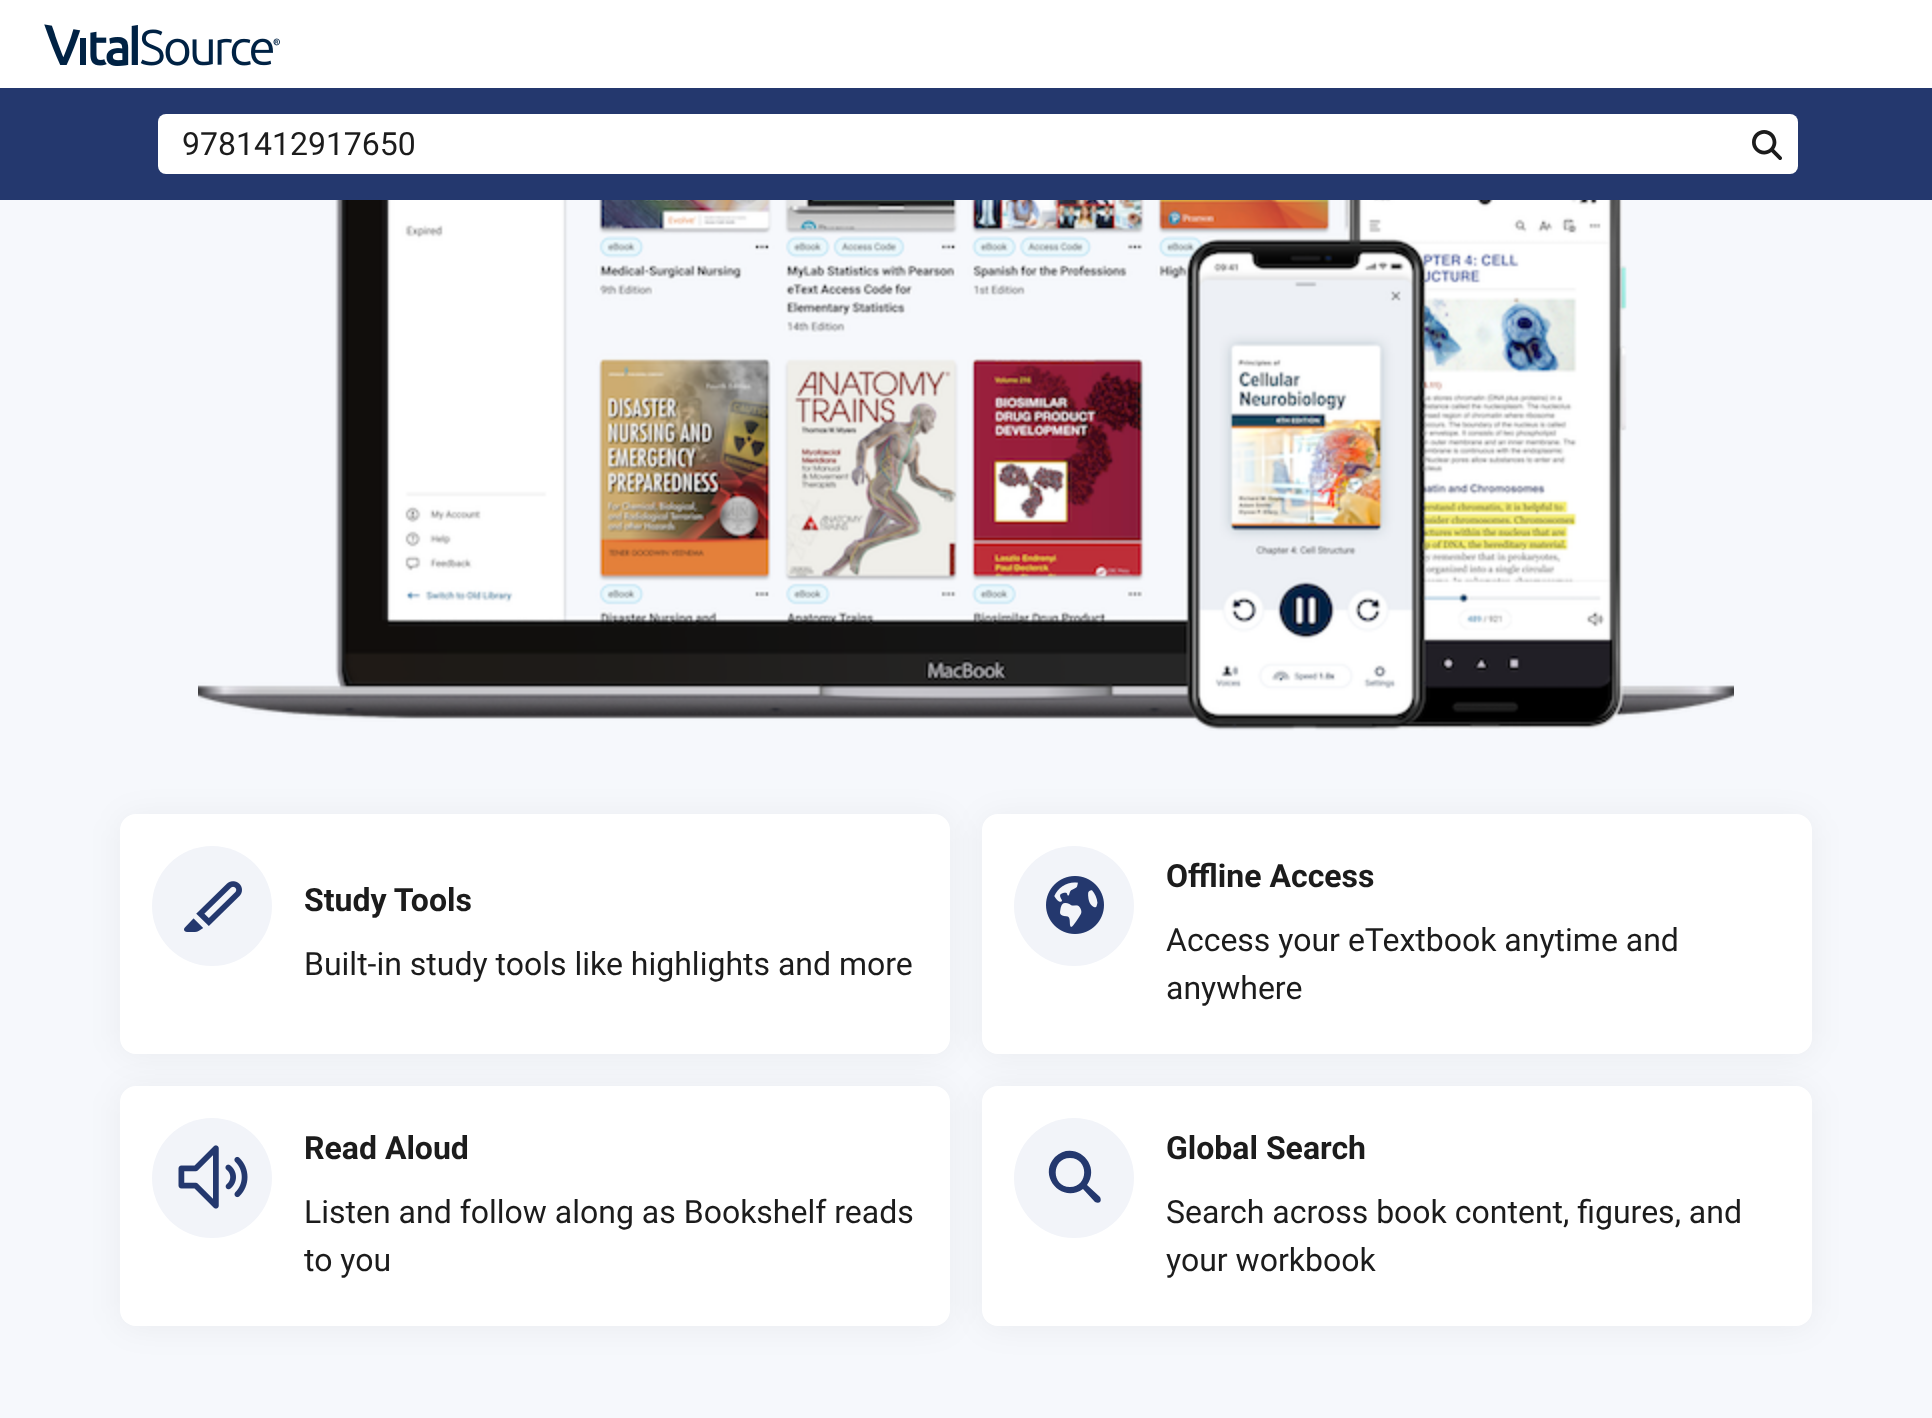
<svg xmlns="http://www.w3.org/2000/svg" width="1932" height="1418">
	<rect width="100%" height="100%" fill="#F6F8FC" />
	<rect x="0" y="0" width="1932" height="88" fill="#FFFFFF" />
	<image x="44" y="24" width="236" height="42" href="assets/img1.png" />
	<rect x="0" y="88" width="1932" height="112" fill="#24386E" />
	<rect x="158" y="114" width="1640" height="60" rx="8" fill="#FFFFFF" />
	<text x="182" y="155" font-family="Roboto" font-size="32" fill="#1C1C1C">9781412917650</text>
	<image x="1752" y="130" width="30" height="30" href="assets/img2.png" />
	<image x="198" y="200" width="1536" height="531" href="assets/img3.png" />
	<rect x="120" y="816" width="830" height="240" rx="16" fill="#000000" fill-opacity="0.05" filter="blur(16px)" />
	<rect x="120" y="814" width="830" height="240" rx="16" fill="#FFFFFF" />
	<circle cx="212" cy="906" r="60" fill="#F2F4F9" />
	<image x="184" y="881" width="58" height="51" href="assets/img4.png" />
	<text x="304" y="911" font-family="Roboto" font-size="32" font-weight="700" fill="#1C1C1C">Study Tools</text>
	<text x="304" y="975" font-family="Roboto" font-size="32" fill="#1C1C1C">Built-in study tools like highlights and more</text>
	<rect x="120" y="1088" width="830" height="240" rx="16" fill="#000000" fill-opacity="0.05" filter="blur(16px)" />
	<rect x="120" y="1086" width="830" height="240" rx="16" fill="#FFFFFF" />
	<rect x="982" y="816" width="830" height="240" rx="16" fill="#000000" fill-opacity="0.05" filter="blur(16px)" />
	<rect x="982" y="814" width="830" height="240" rx="16" fill="#FFFFFF" />
	<circle cx="1074" cy="906" r="60" fill="#F2F4F9" />
	<image x="1046" y="876" width="58" height="58" href="assets/img5.png" />
	<text x="1166" y="887" font-family="Roboto" font-size="32" font-weight="700" fill="#1C1C1C">Offline Access</text>
	<g font-family="Roboto" font-size="32" fill="#1C1C1C">
		<text x="1166" y="951">Access your eTextbook anytime and</text>
		<text x="1166" y="999">anywhere</text>
	</g>
	<circle cx="212" cy="1178" r="60" fill="#F2F4F9" />
	<image x="178" y="1145" width="70" height="64" href="assets/img6.png" />
	<text x="304" y="1159" font-family="Roboto" font-size="32" font-weight="700" fill="#1C1C1C">Read Aloud</text>
	<g font-family="Roboto" font-size="32" fill="#1C1C1C">
		<text x="304" y="1223">Listen and follow along as Bookshelf reads</text>
		<text x="304" y="1271">to you</text>
	</g>
	<rect x="982" y="1088" width="830" height="240" rx="16" fill="#000000" fill-opacity="0.05" filter="blur(16px)" />
	<rect x="982" y="1086" width="830" height="240" rx="16" fill="#FFFFFF" />
	<circle cx="1074" cy="1178" r="60" fill="#F2F4F9" />
	<path d="M1070 1187C1051 1187 1051 1158 1070 1158C1089 1158 1089 1187 1070 1187ZM1100 1197L1087 1185C1102 1164 1074 1139 1055 1157C1037 1176 1062 1204 1083 1189L1095 1202C1097 1203 1099 1203 1100 1202C1101 1201 1101 1199 1100 1197Z" fill="#24386E" fill-rule="evenodd" />
	<text x="1166" y="1159" font-family="Roboto" font-size="32" font-weight="700" fill="#1C1C1C">Global Search</text>
	<g font-family="Roboto" font-size="32" fill="#1C1C1C">
		<text x="1166" y="1223">Search across book content, figures, and</text>
		<text x="1166" y="1271">your workbook</text>
	</g>
</svg>
